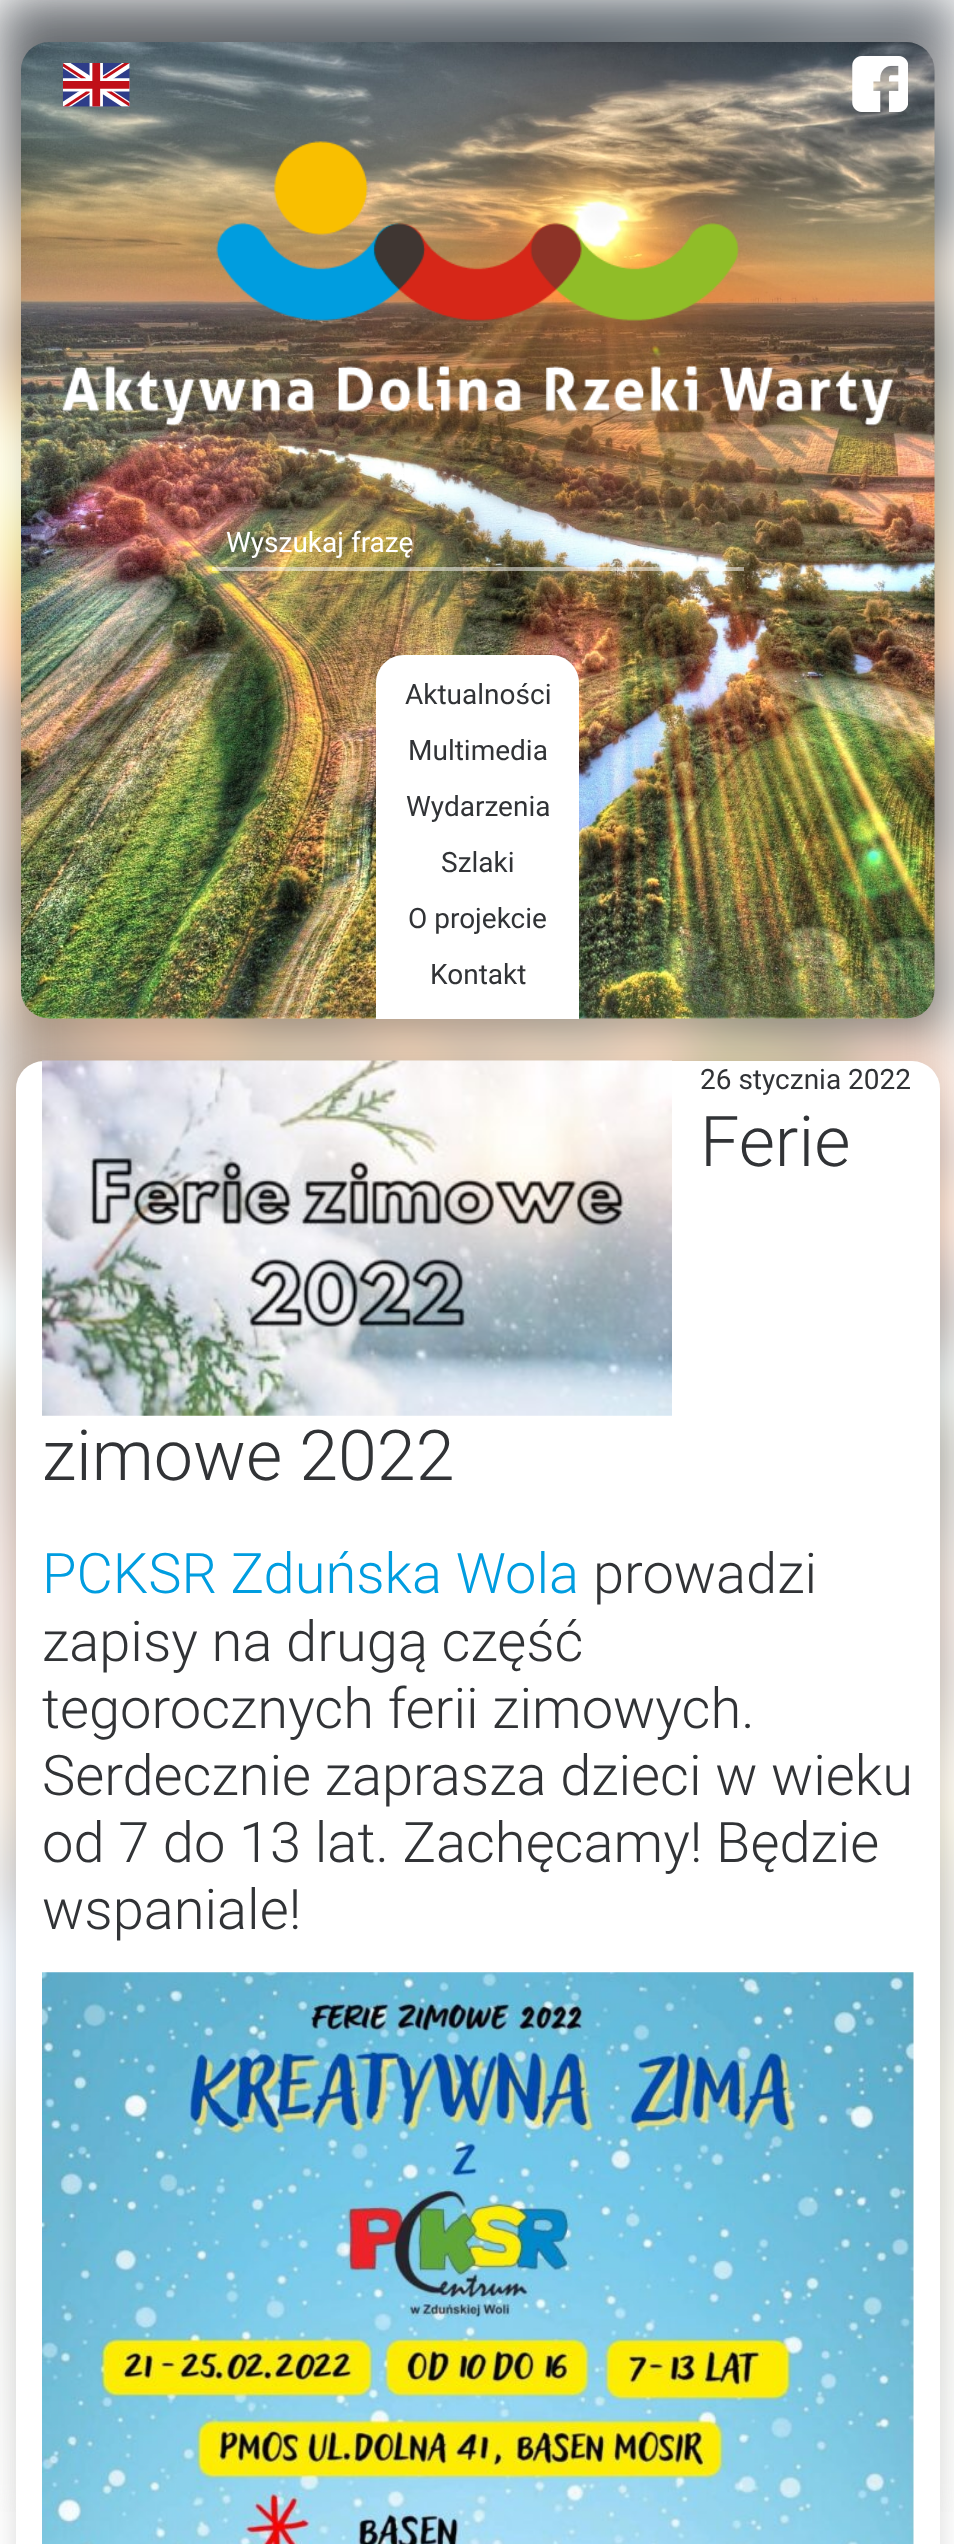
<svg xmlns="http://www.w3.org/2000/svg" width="954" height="2544">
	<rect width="100%" height="100%" fill="#FFFFFF" />
	<image x="0" y="0" width="954" height="2512" href="assets/img1.png" />
	<rect x="21" y="56" width="914" height="977" rx="28" fill="#000000" fill-opacity="0.15" filter="blur(14px)" />
	<image x="21" y="42" width="914" height="977" href="assets/img2.png" />
	<image x="62" y="63" width="68" height="44" href="assets/img3.png" />
	<image x="852" y="56" width="56" height="56" href="assets/img4.png" />
	<image x="61" y="141" width="832" height="285" href="assets/img5.png" />
	<rect x="212" y="567" width="532" height="4" fill="#FFFFFF" fill-opacity="0.5" />
	<text x="226" y="552" font-family="Roboto" font-size="28" fill="#FFFFFF">Wyszukaj frazę</text>
	<path d="M404 655H551C566.5 655 579 667.5 579 683V1019H376V683C376 667.5 388.5 655 404 655Z" fill="#FFFFFF" />
	<g font-family="Roboto" font-size="28" fill="#313336">
		<text x="405" y="704">Aktualności</text>
		<text x="408" y="760">Multimedia</text>
		<text x="406" y="816">Wydarzenia</text>
		<text x="441" y="872">Szlaki</text>
		<text x="408" y="928">O projekcie</text>
		<text x="430" y="984">Kontakt</text>
	</g>
	<rect x="16" y="1075" width="924" height="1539" rx="28" fill="#000000" fill-opacity="0.15" filter="blur(14px)" />
	<rect x="16" y="1061" width="924" height="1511" rx="28" fill="#FFFFFF" />
	<image x="42" y="1060" width="630" height="356" href="assets/img6.png" />
	<text x="700" y="1089" font-family="Roboto" font-size="28" fill="#313336">26 stycznia 2022</text>
	<g font-family="Roboto" font-size="70" font-weight="300" fill="#313336">
		<text x="700" y="1166">Ferie</text>
		<text x="42" y="1480">zimowe 2022</text>
	</g>
	<text x="42" y="1593" font-family="Roboto" font-size="56" font-weight="300" fill="#009DE0">PCKSR Zduńska Wola</text>
	<g font-family="Roboto" font-size="56" font-weight="300" fill="#313336">
		<text x="593" y="1593">prowadzi</text>
		<text x="42" y="1661">zapisy na drugą część</text>
		<text x="42" y="1728">tegorocznych ferii zimowych.</text>
		<text x="42" y="1795">Serdecznie zaprasza dzieci w wieku</text>
		<text x="42" y="1862">od 7 do 13 lat. Zachęcamy! Będzie</text>
		<text x="42" y="1929">wspaniale!</text>
	</g>
	<image x="42" y="1972" width="872" height="572" href="assets/img7.png" />
</svg>
